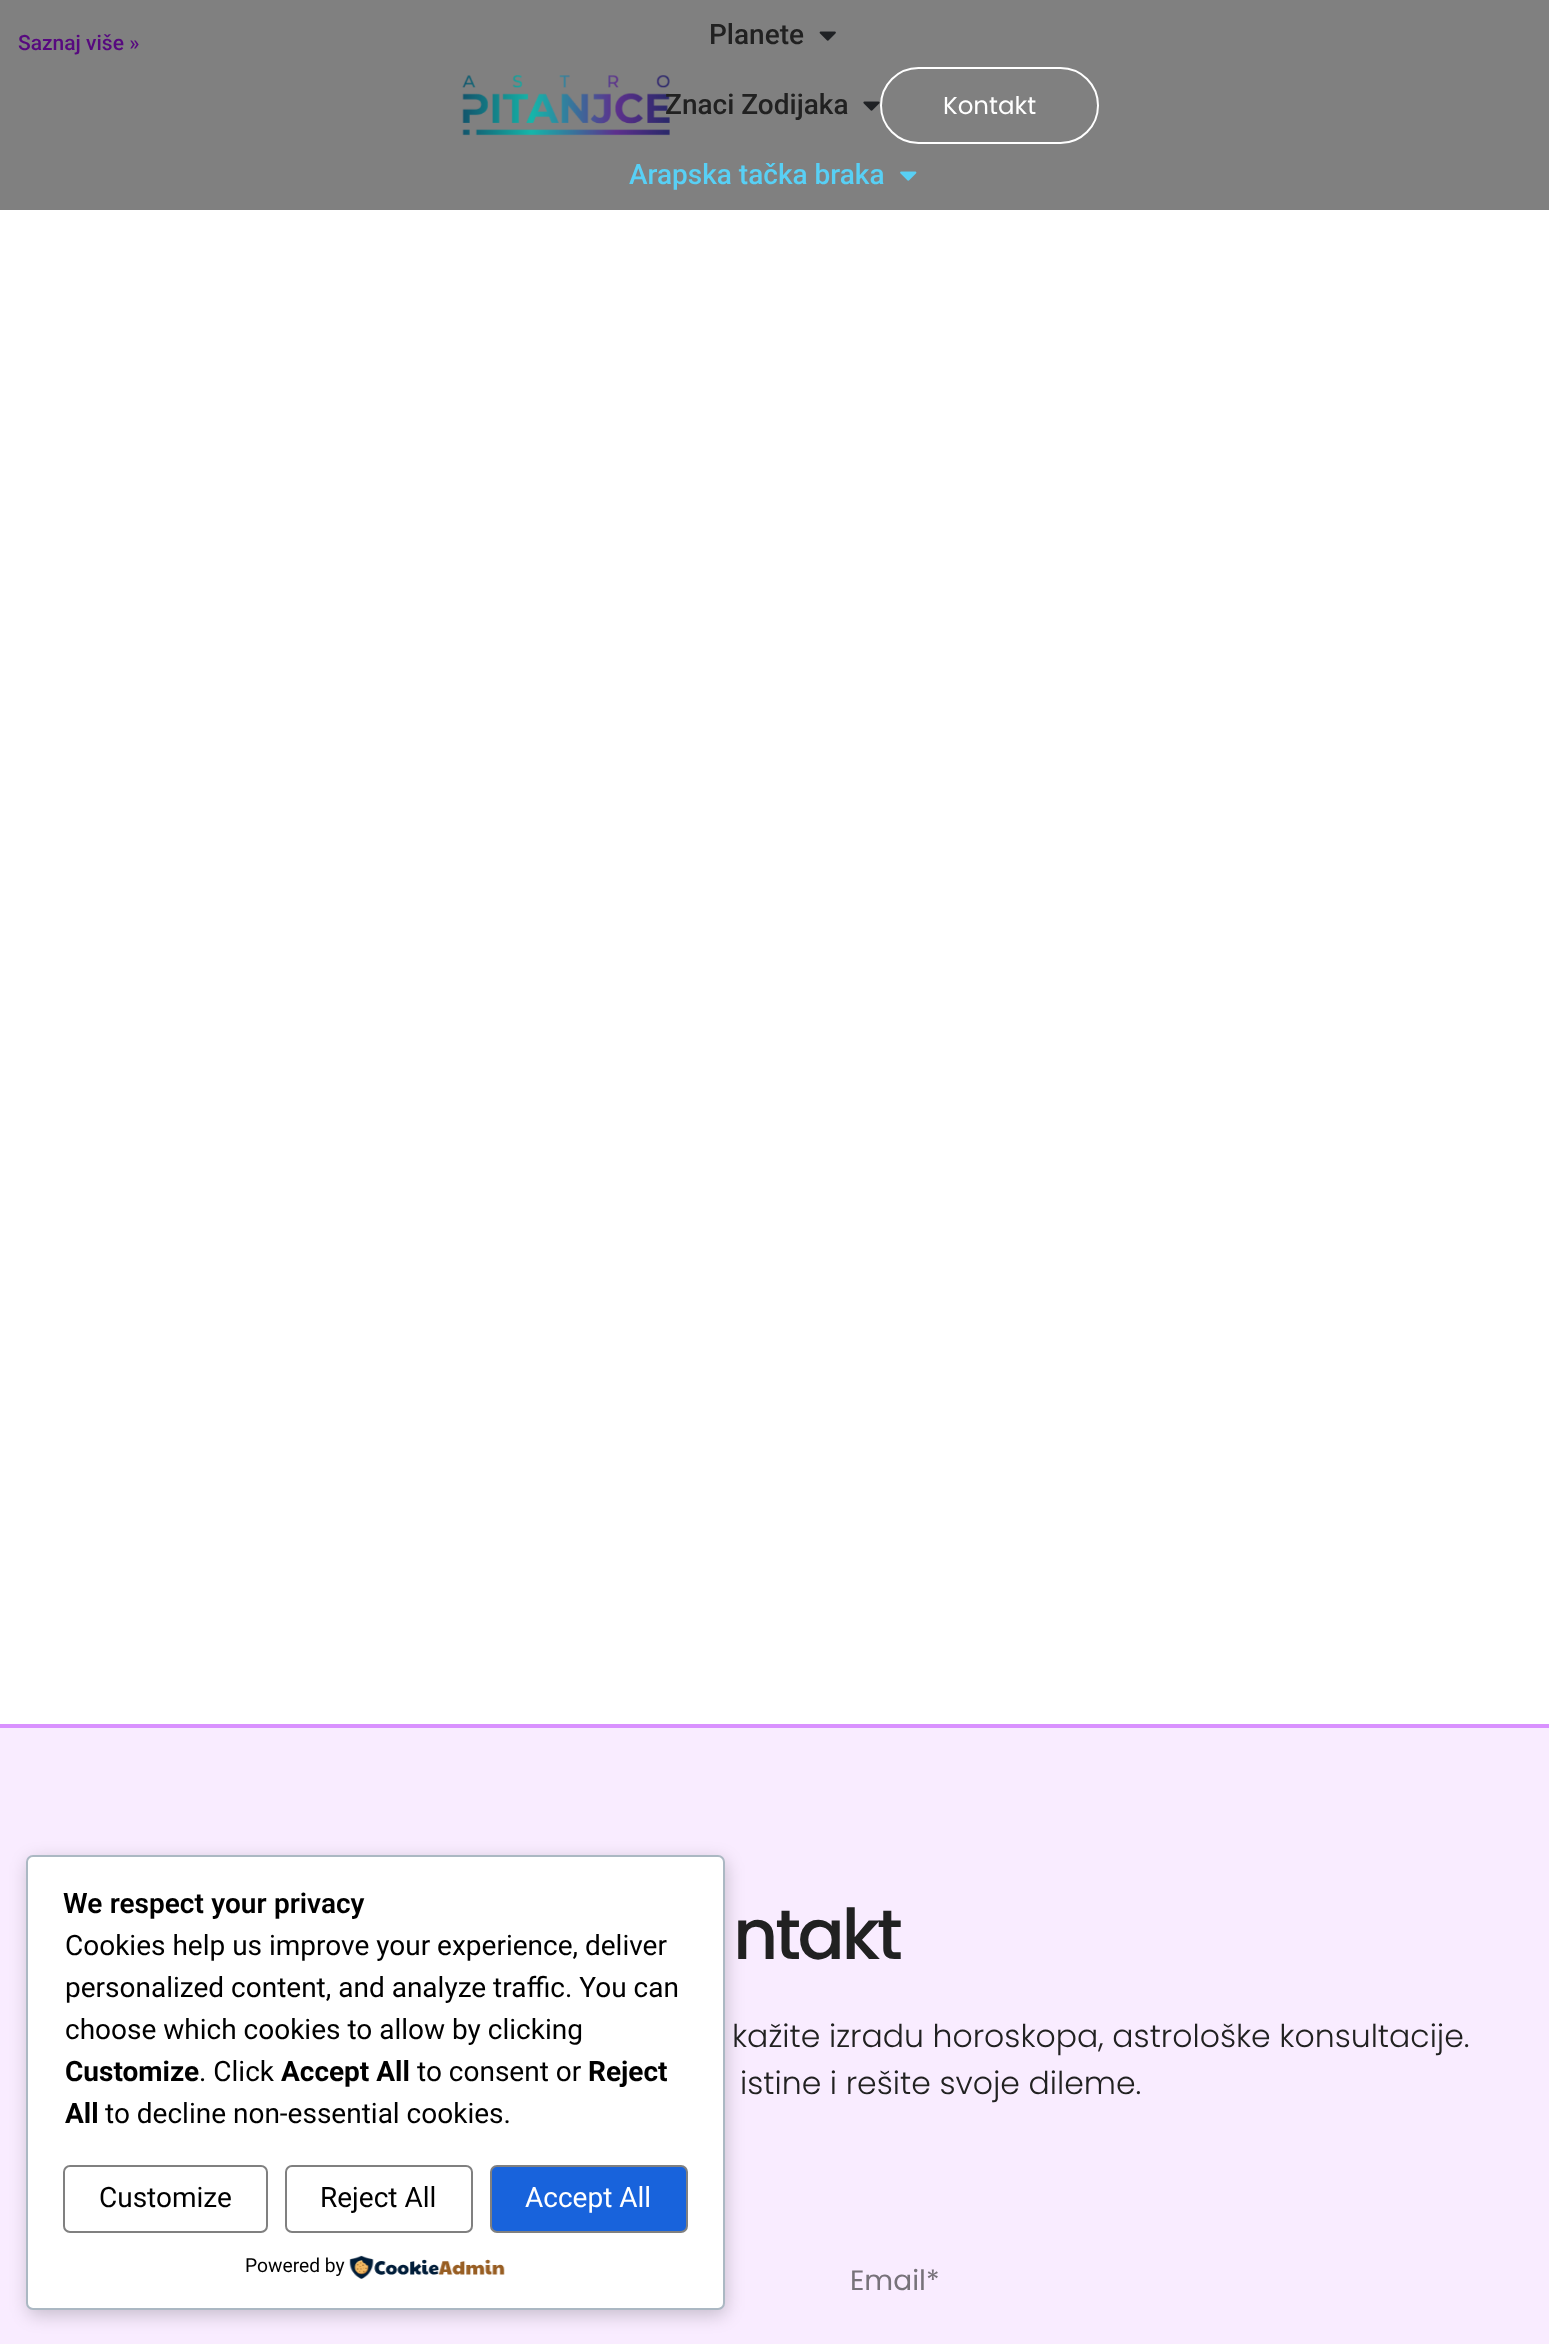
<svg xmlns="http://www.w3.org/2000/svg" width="1549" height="2344">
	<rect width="100%" height="100%" fill="#FFFFFF" />
	<rect x="0" y="0" width="1549" height="210" fill="#808080" />
	<text x="18" y="50" font-family="Roboto" font-size="21" font-weight="500" fill="#57097F">Saznaj više »</text>
	<image x="462" y="75" width="208" height="61" href="assets/img1.png" />
	<text x="709" y="44" font-family="Roboto" font-size="28" font-weight="500" fill="#212121">Planete</text>
	<image x="819" y="31" width="17" height="10" href="assets/img2.png" />
	<text x="665" y="114" font-family="Roboto" font-size="28" font-weight="500" fill="#212121">Znaci Zodijaka</text>
	<image x="863" y="101" width="17" height="10" href="assets/img3.png" />
	<text x="629" y="184" font-family="Roboto" font-size="28" font-weight="500" fill="#58D0F5">Arapska tačka braka</text>
	<image x="900" y="171" width="17" height="10" href="assets/img4.png" />
	<rect x="881" y="68" width="217" height="75" rx="37.5" fill="none" stroke="#FFFFFF" stroke-width="2" />
	<text x="943" y="114" font-family="Poppins" font-size="24.5" fill="#FFFFFF">Kontakt</text>
	<rect x="0" y="1728" width="1549" height="616" fill="#F9ECFF" />
	<rect x="28" y="1860" width="698" height="455" rx="7" fill="#000000" fill-opacity="0.2" filter="blur(9px)" />
	<rect x="27" y="1856" width="697" height="453" rx="6" fill="#FFFFFF" stroke="#ABB8C3" stroke-width="2" />
	<text x="63" y="1913" word-spacing="0.5" font-family="Roboto" font-size="28" font-weight="600" fill="#000000">We respect your privacy</text>
	<g font-family="Roboto" font-size="28" fill="#000000">
		<text x="65" y="1955">Cookies help us improve your experience, deliver</text>
		<text x="65" y="1997">personalized content, and analyze traffic. You can</text>
		<text x="65" y="2039">choose which cookies to allow by clicking</text>
	</g>
	<text x="65" y="2081" font-family="Roboto" font-size="28" font-weight="700" fill="#000000">Customize</text>
	<text x="199" y="2081" font-family="Roboto" font-size="28" fill="#000000">. Click</text>
	<text x="281" y="2081" font-family="Roboto" font-size="28" font-weight="700" fill="#000000">Accept All</text>
	<text x="417" y="2081" font-family="Roboto" font-size="28" fill="#000000">to consent or</text>
	<g font-family="Roboto" font-size="28" font-weight="700" fill="#000000">
		<text x="588" y="2081">Reject</text>
		<text x="65" y="2123">All</text>
	</g>
	<text x="105" y="2123" font-family="Roboto" font-size="28" fill="#000000">to decline non-essential cookies.</text>
	<rect x="64" y="2166" width="203" height="66" rx="6" fill="none" stroke="#808080" stroke-width="2" />
	<text x="99" y="2207" font-family="Roboto" font-size="28" fill="#000000">Customize</text>
	<rect x="286" y="2166" width="186" height="66" rx="6" fill="none" stroke="#808080" stroke-width="2" />
	<text x="320" y="2207" font-family="Roboto" font-size="28" fill="#000000">Reject All</text>
	<rect x="491" y="2166" width="196" height="66" rx="6" fill="#1863DC" stroke="#808080" stroke-width="2" />
	<text x="525" y="2207" font-family="Roboto" font-size="28" fill="#FFFFFF">Accept All</text>
	<text x="245" y="2272" font-family="Roboto" font-size="19.25" fill="#000000">Powered by</text>
	<image x="349" y="2255" width="156" height="24" href="assets/img5.png" />
	<rect x="0" y="1724" width="1549" height="4" fill="#D991FF" />
	<text x="733" y="1959" font-family="Poppins" font-size="70" font-weight="500" letter-spacing="-3.5" fill="#212121">ntakt</text>
	<g font-family="Poppins" font-size="31.5" font-weight="300" fill="#212121">
		<text x="732" y="2047">kažite izradu horoskopa, astrološke konsultacije.</text>
		<text x="740" y="2094">istine i rešite svoje dileme.</text>
	</g>
	<text x="850" y="2290" font-family="Poppins" font-size="28" fill="#77727A">Email*</text>
</svg>
